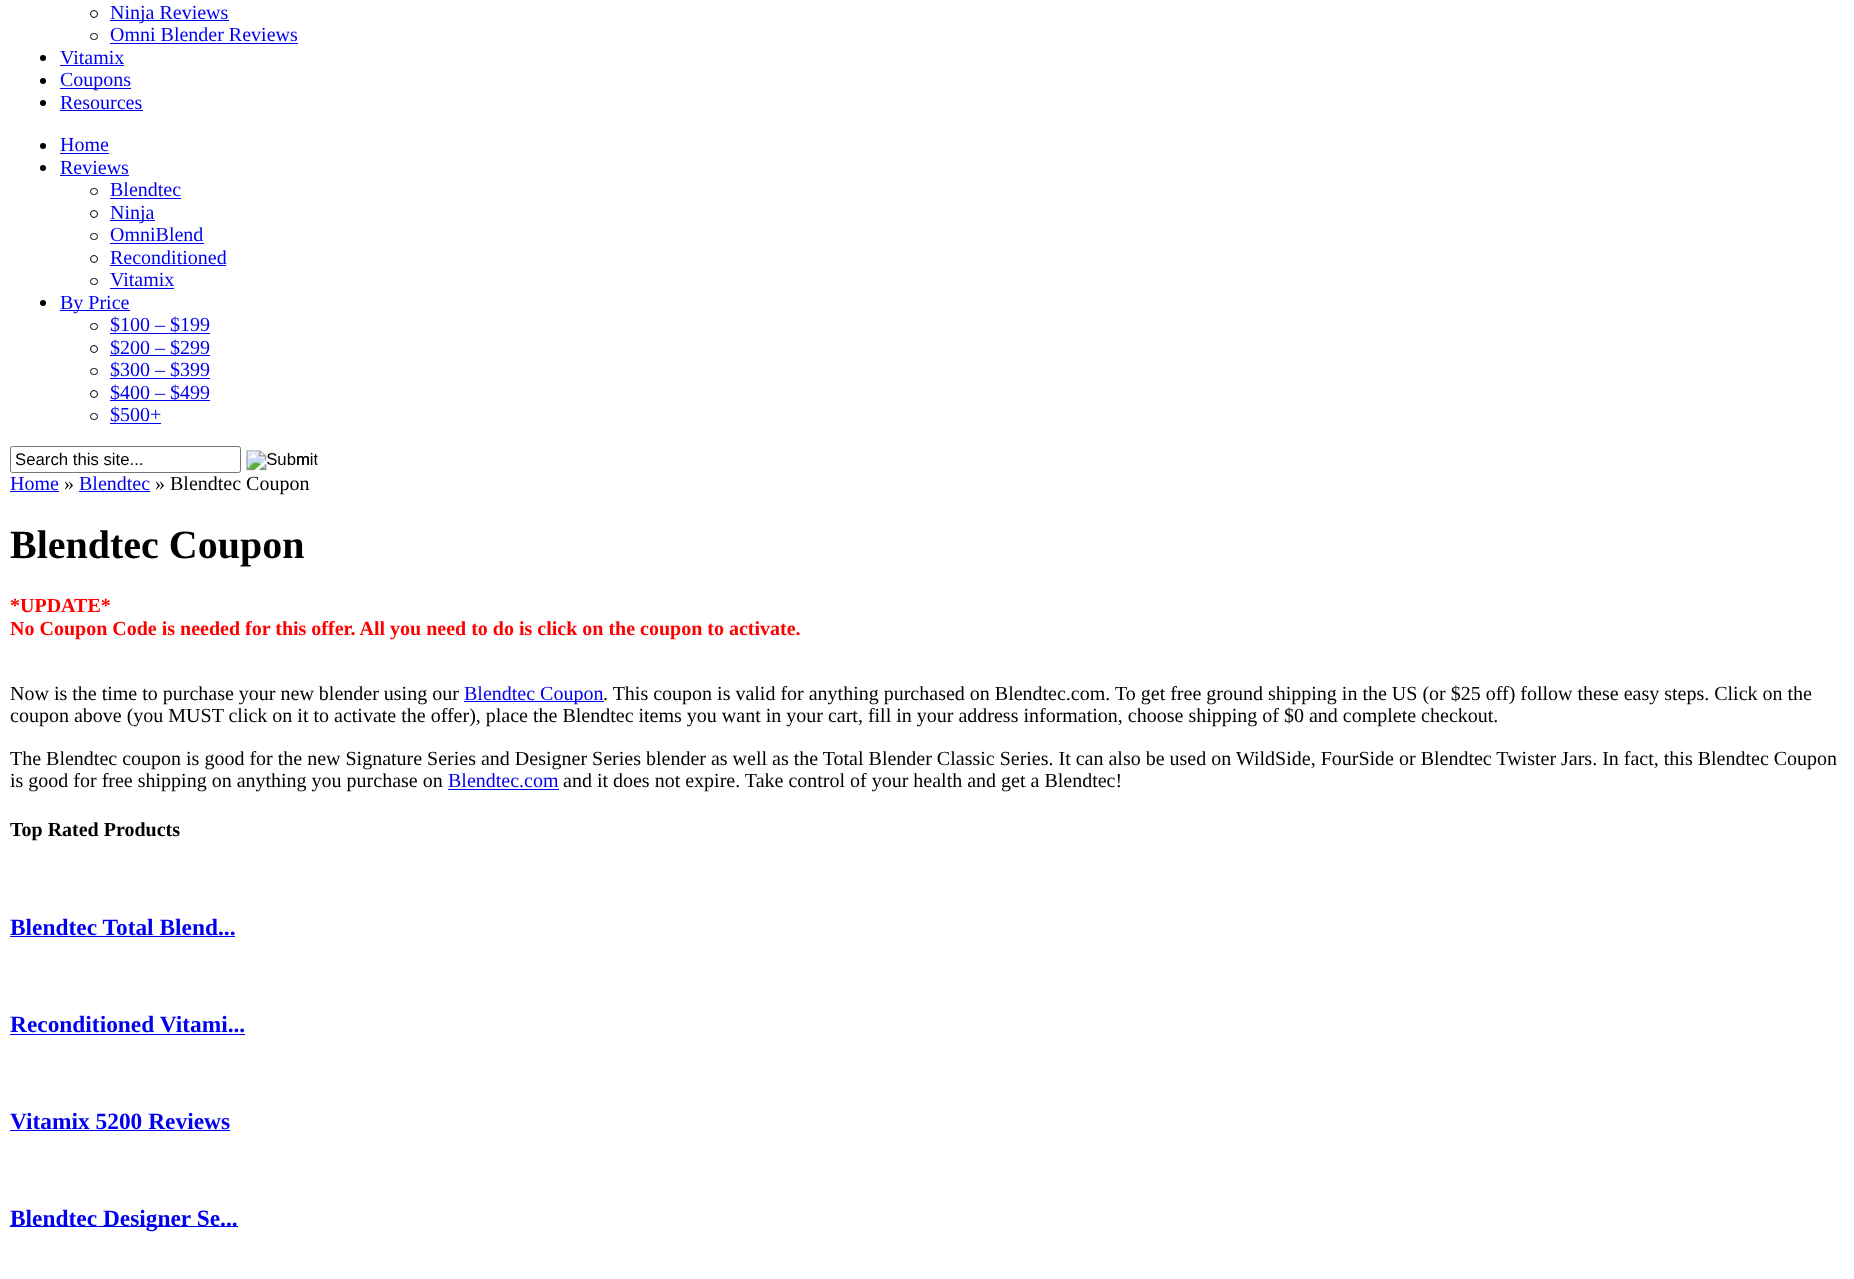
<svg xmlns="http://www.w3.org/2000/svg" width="1854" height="1279">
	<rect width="100%" height="100%" fill="#FFFFFF" />
	<circle cx="94" cy="14" r="3.5" fill="none" stroke="#000000" />
	<rect x="110" y="20" width="119" height="1" fill="#0000EE" />
	<text x="110" y="19" font-family="Liberation Serif" font-size="20" fill="#0000EE">Ninja Reviews</text>
	<rect x="90.5" y="33.5" width="7" height="6" rx="3" fill="none" stroke="#000000" />
	<text x="110" y="41" font-family="Liberation Serif" font-size="20" fill="#0000EE">Omni Blender Reviews</text>
	<rect x="110" y="43" width="188" height="1" fill="#0000EE" />
	<circle cx="43" cy="58" r="3" fill="#000000" />
	<text x="60" y="64" font-family="Liberation Serif" font-size="20" fill="#0000EE">Vitamix</text>
	<rect x="60" y="65" width="64" height="1" fill="#0000EE" />
	<circle cx="43" cy="81" r="3" fill="#000000" />
	<rect x="60" y="88" width="71" height="1" fill="#0000EE" />
	<text x="60" y="86" font-family="Liberation Serif" font-size="20" fill="#0000EE">Coupons</text>
	<circle cx="43" cy="103" r="3" fill="#000000" />
	<text x="60" y="109" font-family="Liberation Serif" font-size="20" fill="#0000EE">Resources</text>
	<rect x="60" y="110" width="83" height="1" fill="#0000EE" />
	<circle cx="43" cy="146" r="3" fill="#000000" />
	<text x="60" y="151" font-family="Liberation Serif" font-size="20" fill="#0000EE">Home</text>
	<rect x="60" y="153" width="49" height="1" fill="#0000EE" />
	<circle cx="43" cy="168" r="3" fill="#000000" />
	<text x="60" y="174" font-family="Liberation Serif" font-size="20" fill="#0000EE">Reviews</text>
	<rect x="60" y="175" width="69" height="1" fill="#0000EE" />
	<rect x="90.5" y="188.5" width="7" height="6" rx="3" fill="none" stroke="#000000" />
	<text x="110" y="196" font-family="Liberation Serif" font-size="20" fill="#0000EE">Blendtec</text>
	<rect x="110" y="198" width="71" height="1" fill="#0000EE" />
	<circle cx="94" cy="214" r="3.5" fill="none" stroke="#000000" />
	<rect x="110" y="220" width="45" height="1" fill="#0000EE" />
	<text x="110" y="219" font-family="Liberation Serif" font-size="20" fill="#0000EE">Ninja</text>
	<rect x="90.5" y="233.5" width="7" height="6" rx="3" fill="none" stroke="#000000" />
	<text x="110" y="241" font-family="Liberation Serif" font-size="20" fill="#0000EE">OmniBlend</text>
	<rect x="110" y="243" width="94" height="1" fill="#0000EE" />
	<circle cx="94" cy="259" r="3.5" fill="none" stroke="#000000" />
	<text x="110" y="264" font-family="Liberation Serif" font-size="20" fill="#0000EE">Reconditioned</text>
	<rect x="110" y="265" width="116" height="1" fill="#0000EE" />
	<rect x="90.5" y="278.5" width="7" height="6" rx="3" fill="none" stroke="#000000" />
	<text x="110" y="286" font-family="Liberation Serif" font-size="20" fill="#0000EE">Vitamix</text>
	<rect x="110" y="288" width="64" height="1" fill="#0000EE" />
	<circle cx="43" cy="303" r="3" fill="#000000" />
	<rect x="60" y="310" width="70" height="1" fill="#0000EE" />
	<text x="60" y="309" font-family="Liberation Serif" font-size="20" fill="#0000EE">By Price</text>
	<rect x="90.5" y="323.5" width="7" height="6" rx="3" fill="none" stroke="#000000" />
	<text x="110" y="331" font-family="Liberation Serif" font-size="20" fill="#0000EE">$100 – $199</text>
	<rect x="110" y="333" width="100" height="1" fill="#0000EE" />
	<circle cx="94" cy="349" r="3.5" fill="none" stroke="#000000" />
	<rect x="110" y="355" width="100" height="1" fill="#0000EE" />
	<text x="110" y="354" font-family="Liberation Serif" font-size="20" fill="#0000EE">$200 – $299</text>
	<rect x="90.5" y="368.5" width="7" height="6" rx="3" fill="none" stroke="#000000" />
	<text x="110" y="376" font-family="Liberation Serif" font-size="20" fill="#0000EE">$300 – $399</text>
	<rect x="110" y="378" width="100" height="1" fill="#0000EE" />
	<circle cx="94" cy="394" r="3.5" fill="none" stroke="#000000" />
	<rect x="110" y="400" width="100" height="1" fill="#0000EE" />
	<text x="110" y="399" font-family="Liberation Serif" font-size="20" fill="#0000EE">$400 – $499</text>
	<rect x="90.5" y="413.5" width="7" height="6" rx="3" fill="none" stroke="#000000" />
	<text x="110" y="421" font-family="Liberation Serif" font-size="20" fill="#0000EE">$500+</text>
	<rect x="110" y="423" width="51" height="1" fill="#0000EE" />
	<rect x="10.5" y="446.5" width="230" height="26" rx="2" fill="none" stroke="#767676" />
	<text x="15" y="465" font-family="Liberation Sans" font-size="16.75" fill="#000000">Search this site...</text>
	<image x="246" y="450" width="72" height="21" href="assets/img1.png" />
	<text x="296" y="465" font-family="Liberation Sans" font-size="16.75" fill="#000000">m</text>
	<text x="10" y="490" font-family="Liberation Serif" font-size="20" fill="#0000EE">Home</text>
	<rect x="10" y="491" width="49" height="1" fill="#0000EE" />
	<text x="64" y="490" font-family="Liberation Serif" font-size="20" fill="#000000">»</text>
	<text x="79" y="490" font-family="Liberation Serif" font-size="20" fill="#0000EE">Blendtec</text>
	<rect x="79" y="491" width="71" height="1" fill="#0000EE" />
	<text x="155" y="490" font-family="Liberation Serif" font-size="20" fill="#000000">» Blendtec Coupon</text>
	<text x="10" y="558" font-family="Liberation Serif" font-size="40" font-weight="700" fill="#000000">Blendtec Coupon</text>
	<g font-family="Liberation Serif" font-size="20" font-weight="700" fill="#FF0000">
		<text x="10" y="612">*UPDATE*</text>
		<text x="10" y="635">No Coupon Code is needed for this offer. All you need to do is click on the coupon to activate.</text>
	</g>
	<text x="10" y="700" font-family="Liberation Serif" font-size="20" fill="#000000">Now is the time to purchase your new blender using our</text>
	<rect x="464" y="701" width="140" height="1" fill="#0000EE" />
	<text x="464" y="700" font-family="Liberation Serif" font-size="20" fill="#0000EE">Blendtec Coupon</text>
	<g font-family="Liberation Serif" font-size="20" fill="#000000">
		<text x="603" y="700">. This coupon is valid for anything purchased on Blendtec.com. To get free ground shipping in the US (or $25 off) follow these easy steps. Click on the</text>
		<text x="10" y="722">coupon above (you MUST click on it to activate the offer), place the Blendtec items you want in your cart, fill in your address information, choose shipping of $0 and complete checkout.</text>
		<text x="10" y="765">The Blendtec coupon is good for the new Signature Series and Designer Series blender as well as the Total Blender Classic Series. It can also be used on WildSide, FourSide or Blendtec Twister Jars. In fact, this Blendtec Coupon</text>
		<text x="10" y="787">is good for free shipping on anything you purchase on</text>
	</g>
	<text x="448" y="787" font-family="Liberation Serif" font-size="20" fill="#0000EE">Blendtec.com</text>
	<rect x="448" y="789" width="111" height="1" fill="#0000EE" />
	<text x="563" y="787" font-family="Liberation Serif" font-size="20" fill="#000000">and it does not expire. Take control of your health and get a Blendtec!</text>
	<text x="10" y="836" font-family="Liberation Serif" font-size="20" font-weight="700" fill="#000000">Top Rated Products</text>
	<text x="10" y="935" font-family="Liberation Serif" font-size="23.4" font-weight="700" fill="#0000EE">Blendtec Total Blend...</text>
	<rect x="10" y="936" width="225" height="1" fill="#0000EE" />
	<text x="10" y="1032" font-family="Liberation Serif" font-size="23.4" font-weight="700" fill="#0000EE">Reconditioned Vitami...</text>
	<rect x="10" y="1034" width="235" height="1" fill="#0000EE" />
	<text x="10" y="1129" font-family="Liberation Serif" font-size="23.4" font-weight="700" fill="#0000EE">Vitamix 5200 Reviews</text>
	<rect x="10" y="1130" width="220" height="1" fill="#0000EE" />
	<rect x="10" y="1226" width="228" height="1" fill="#0000EE" />
	<text x="10" y="1226" font-family="Liberation Serif" font-size="23.4" font-weight="700" fill="#0000EE">Blendtec Designer Se...</text>
</svg>
